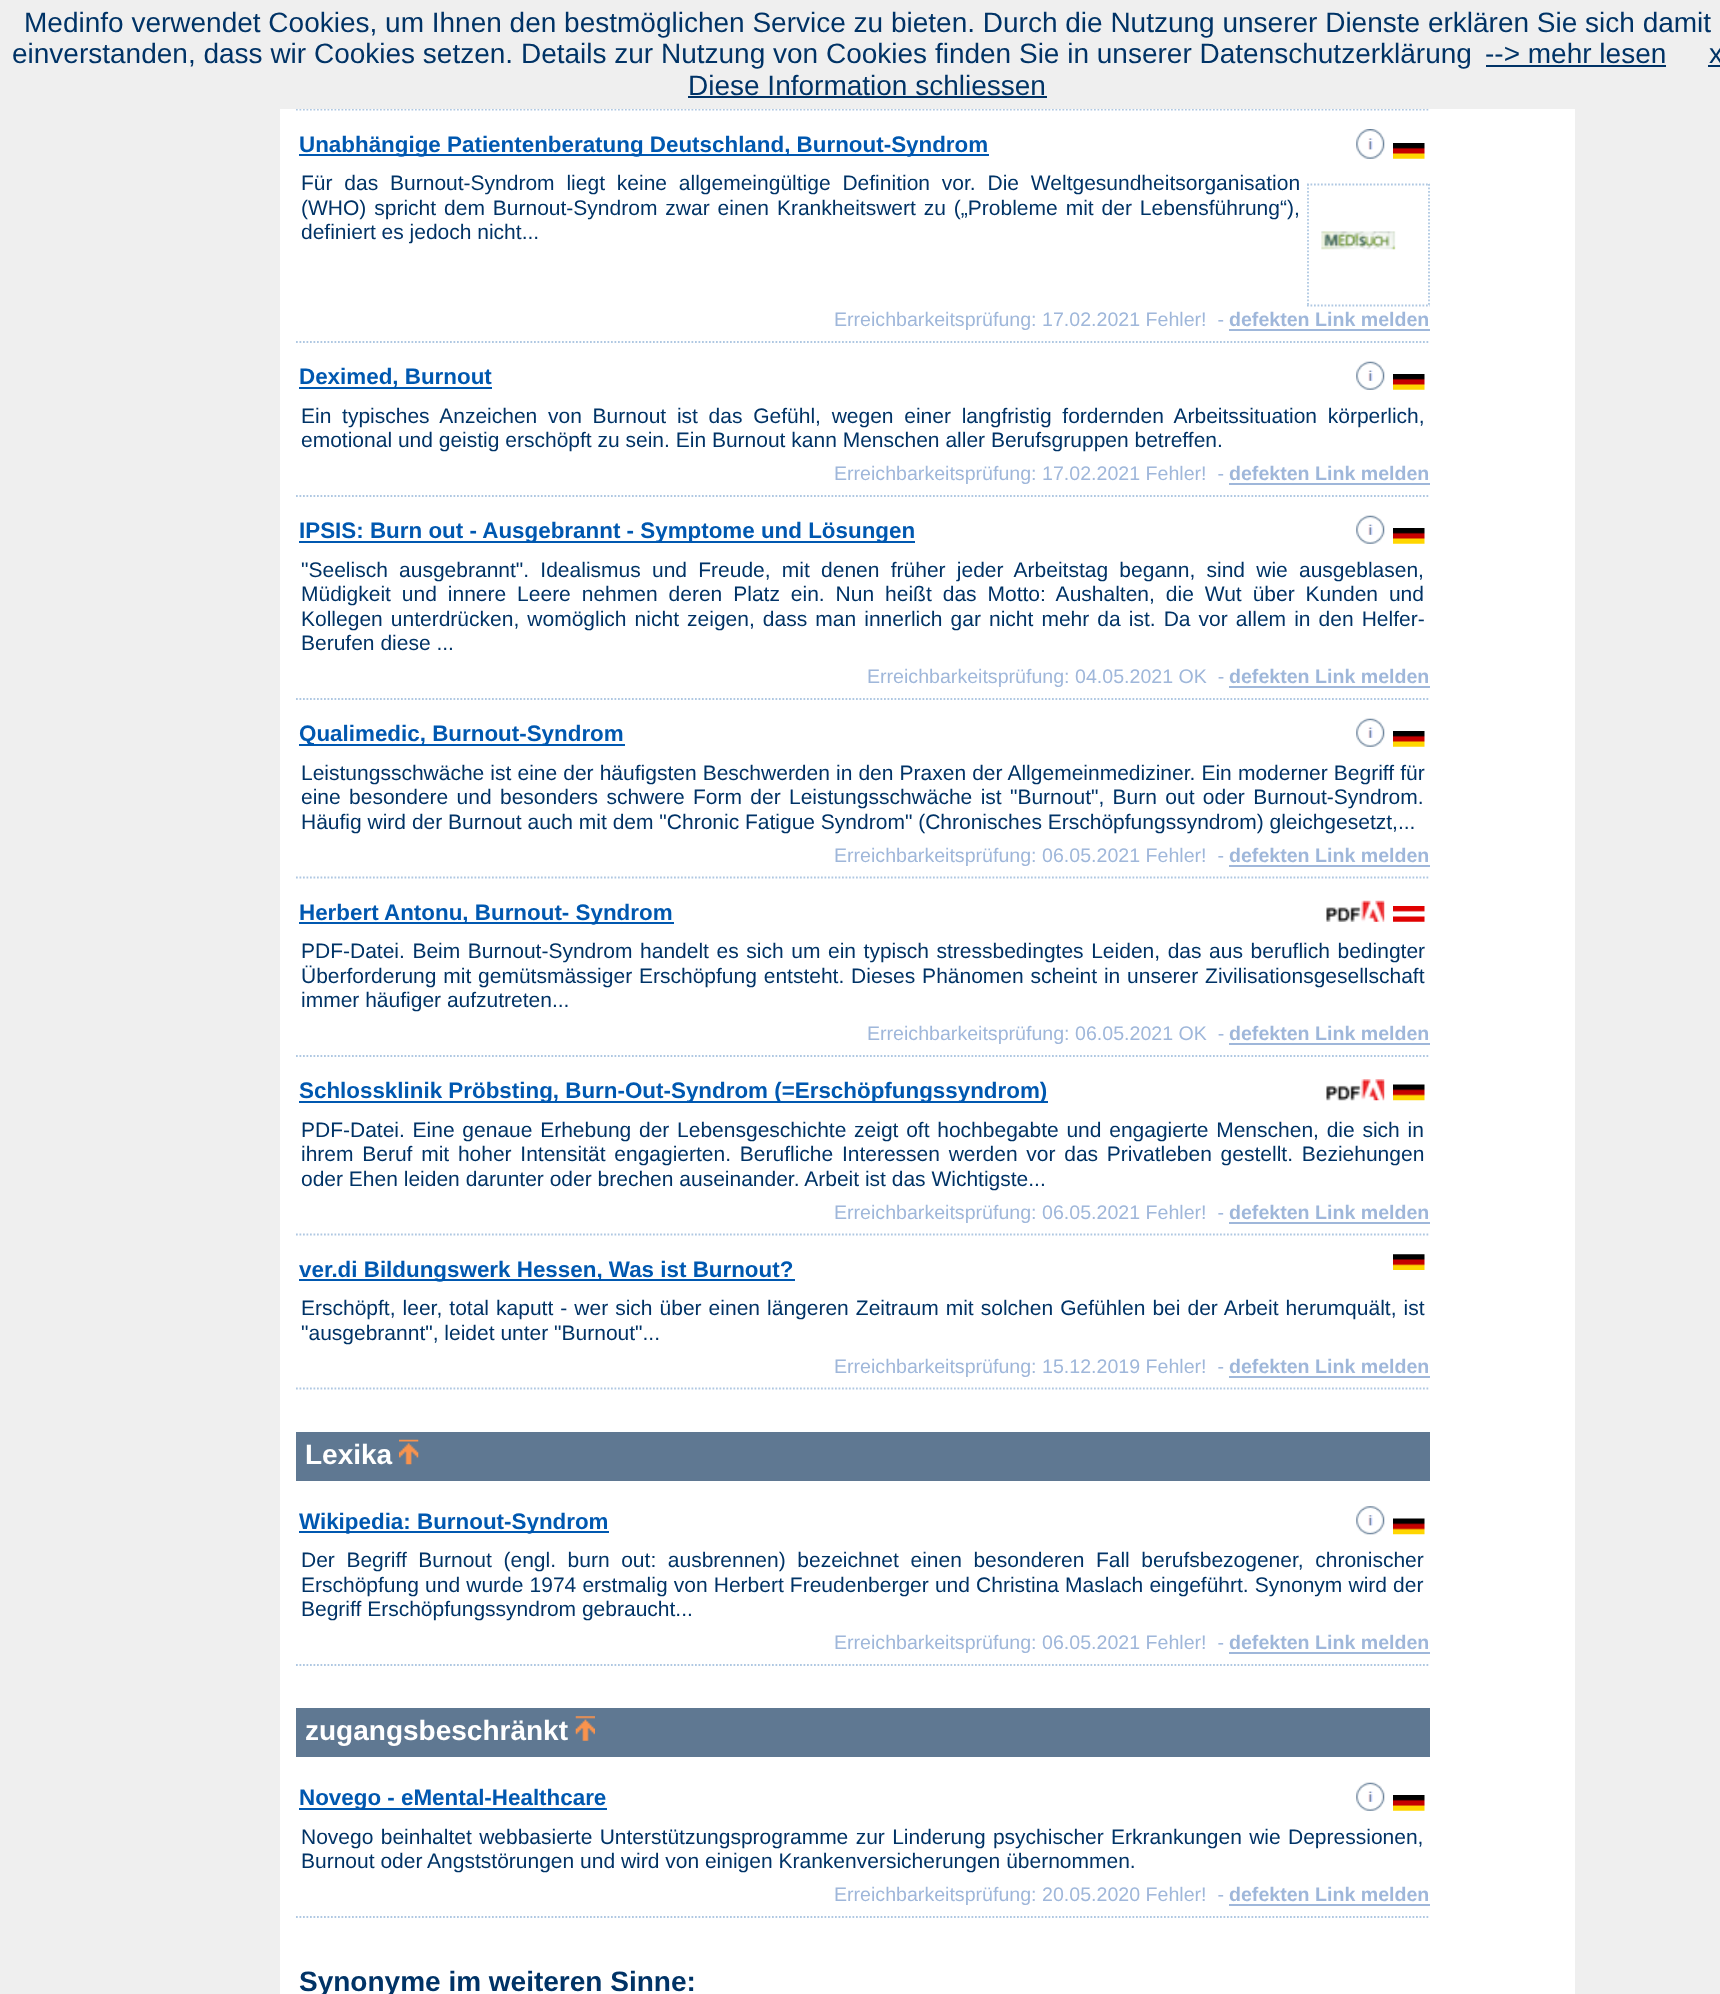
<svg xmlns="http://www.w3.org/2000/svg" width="1720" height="1994">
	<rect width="100%" height="100%" fill="#EFEFEF" />
	<rect x="280" y="109" width="1295" height="1885" fill="#FFFFFF" />
	<path d="M296 109.5H1430" fill="none" stroke="#AFC8E2" stroke-width="1.8" stroke-dasharray="1.75 1.75" />
	<rect x="296" y="108" width="1133" height="1" fill="#EEEEEE" />
	<g font-family="Liberation Sans" font-size="28" fill="#003366">
		<text x="24" y="32">Medinfo verwendet Cookies, um Ihnen den bestmöglichen Service zu bieten. Durch die Nutzung unserer Dienste erklären Sie sich damit</text>
		<text x="12" y="63">einverstanden, dass wir Cookies setzen. Details zur Nutzung von Cookies finden Sie in unserer Datenschutzerklärung</text>
		<text x="1485" y="63">--&gt; mehr lesen</text>
	</g>
	<rect x="1486" y="65" width="180" height="2" fill="#003366" />
	<text x="1709" y="63" font-family="Liberation Sans" font-size="28" fill="#003366">x</text>
	<rect x="1708" y="65" width="12" height="2" fill="#003366" />
	<text x="688" y="95" font-family="Liberation Sans" font-size="28" fill="#003366">Diese Information schliessen</text>
	<rect x="688" y="96" width="359" height="2" fill="#003366" />
	<rect x="299" y="154" width="690" height="2" fill="#0058B0" />
	<text x="299" y="152" font-family="Liberation Sans" font-size="22.4" font-weight="700" fill="#0058B0">Unabhängige Patientenberatung Deutschland, Burnout-Syndrom</text>
	<image x="1356" y="129" width="29" height="30" href="assets/img1.png" />
	<image x="1393" y="143" width="32" height="16" href="assets/img2.png" />
	<g font-family="Liberation Sans" font-size="21" fill="#003366">
		<text x="301" y="190" word-spacing="6">Für das Burnout-Syndrom liegt keine allgemeingültige Definition vor. Die Weltgesundheitsorganisation</text>
		<text x="301" y="215" word-spacing="2.1">(WHO) spricht dem Burnout-Syndrom zwar einen Krankheitswert zu („Probleme mit der Lebensführung“),</text>
		<text x="301" y="239">definiert es jedoch nicht...</text>
	</g>
	<path d="M1307 184.5H1430" fill="none" stroke="#AFC8E2" stroke-width="1.8" stroke-dasharray="1.75 1.75" />
	<path d="M1429 184V306" fill="none" stroke="#AFC8E2" stroke-width="1.8" stroke-dasharray="1.75 1.75" />
	<path d="M1307 305.5H1430" fill="none" stroke="#AFC8E2" stroke-width="1.8" stroke-dasharray="1.75 1.75" />
	<path d="M1308 184V306" fill="none" stroke="#AFC8E2" stroke-width="1.8" stroke-dasharray="1.75 1.75" />
	<image x="1321" y="231" width="75" height="19" href="assets/img3.png" />
	<path d="M296 342H1430" fill="none" stroke="#AFC8E2" stroke-width="1.8" stroke-dasharray="1.75 1.75" />
	<text x="834" y="326" font-family="Liberation Sans" font-size="19.6" fill="#9FB7DA" xml:space="preserve">Erreichbarkeitsprüfung: 17.02.2021 Fehler!  -</text>
	<text x="1229" y="326" font-family="Liberation Sans" font-size="19.6" font-weight="700" fill="#9FB7DA">defekten Link melden</text>
	<rect x="1229" y="329" width="201" height="2" fill="#9FB7DA" />
	<rect x="299" y="387" width="193" height="2" fill="#0058B0" />
	<text x="299" y="384" font-family="Liberation Sans" font-size="22.4" font-weight="700" fill="#0058B0">Deximed, Burnout</text>
	<image x="1356" y="361" width="29" height="29" href="assets/img4.png" />
	<image x="1393" y="374" width="32" height="16" href="assets/img2.png" />
	<g font-family="Liberation Sans" font-size="21" fill="#003366">
		<text x="301" y="423" word-spacing="4.9">Ein typisches Anzeichen von Burnout ist das Gefühl, wegen einer langfristig fordernden Arbeitssituation körperlich,</text>
		<text x="301" y="447">emotional und geistig erschöpft zu sein. Ein Burnout kann Menschen aller Berufsgruppen betreffen.</text>
	</g>
	<path d="M296 496H1430" fill="none" stroke="#AFC8E2" stroke-width="1.8" stroke-dasharray="1.75 1.75" />
	<text x="834" y="480" font-family="Liberation Sans" font-size="19.6" fill="#9FB7DA" xml:space="preserve">Erreichbarkeitsprüfung: 17.02.2021 Fehler!  -</text>
	<text x="1229" y="480" font-family="Liberation Sans" font-size="19.6" font-weight="700" fill="#9FB7DA">defekten Link melden</text>
	<rect x="1229" y="483" width="201" height="2" fill="#9FB7DA" />
	<rect x="299" y="541" width="616" height="2" fill="#0058B0" />
	<text x="299" y="538" font-family="Liberation Sans" font-size="22.4" font-weight="700" fill="#0058B0">IPSIS: Burn out - Ausgebrannt - Symptome und Lösungen</text>
	<image x="1356" y="515" width="29" height="29" href="assets/img5.png" />
	<image x="1393" y="528" width="32" height="16" href="assets/img2.png" />
	<g font-family="Liberation Sans" font-size="21" fill="#003366">
		<text x="301" y="577" word-spacing="5.4">"Seelisch ausgebrannt". Idealismus und Freude, mit denen früher jeder Arbeitstag begann, sind wie ausgeblasen,</text>
		<text x="301" y="601" word-spacing="5.1">Müdigkeit und innere Leere nehmen deren Platz ein. Nun heißt das Motto: Aushalten, die Wut über Kunden und</text>
		<text x="301" y="626" word-spacing="2.25">Kollegen unterdrücken, womöglich nicht zeigen, dass man innerlich gar nicht mehr da ist. Da vor allem in den Helfer-</text>
		<text x="301" y="650">Berufen diese ...</text>
	</g>
	<path d="M296 699H1430" fill="none" stroke="#AFC8E2" stroke-width="1.8" stroke-dasharray="1.75 1.75" />
	<text x="867" y="683" font-family="Liberation Sans" font-size="19.6" fill="#9FB7DA" xml:space="preserve">Erreichbarkeitsprüfung: 04.05.2021 OK  -</text>
	<text x="1229" y="683" font-family="Liberation Sans" font-size="19.6" font-weight="700" fill="#9FB7DA">defekten Link melden</text>
	<rect x="1229" y="686" width="201" height="2" fill="#9FB7DA" />
	<rect x="299" y="744" width="326" height="2" fill="#0058B0" />
	<text x="299" y="741" font-family="Liberation Sans" font-size="22.4" font-weight="700" fill="#0058B0">Qualimedic, Burnout-Syndrom</text>
	<image x="1356" y="718" width="29" height="29" href="assets/img4.png" />
	<image x="1393" y="731" width="32" height="16" href="assets/img2.png" />
	<g font-family="Liberation Sans" font-size="21" fill="#003366">
		<text x="301" y="780" word-spacing="0.25">Leistungsschwäche ist eine der häufigsten Beschwerden in den Praxen der Allgemeinmediziner. Ein moderner Begriff für</text>
		<text x="301" y="804" word-spacing="2.5">eine besondere und besonders schwere</text>
		<text x="693" y="804" word-spacing="2.5">Form der Leistungsschwäche ist "Burnout", Burn out oder Burnout-Syndrom.</text>
		<text x="301" y="829">Häufig wird der Burnout auch mit dem "Chronic Fatigue Syndrom" (Chronisches Erschöpfungssyndrom) gleichgesetzt,...</text>
	</g>
	<path d="M296 877.5H1430" fill="none" stroke="#AFC8E2" stroke-width="1.8" stroke-dasharray="1.75 1.75" />
	<text x="834" y="862" font-family="Liberation Sans" font-size="19.6" fill="#9FB7DA" xml:space="preserve">Erreichbarkeitsprüfung: 06.05.2021 Fehler!  -</text>
	<text x="1229" y="862" font-family="Liberation Sans" font-size="19.6" font-weight="700" fill="#9FB7DA">defekten Link melden</text>
	<rect x="1229" y="865" width="201" height="2" fill="#9FB7DA" />
	<rect x="299" y="922" width="375" height="2" fill="#0058B0" />
	<text x="299" y="920" font-family="Liberation Sans" font-size="22.4" font-weight="700" fill="#0058B0">Herbert Antonu, Burnout- Syndrom</text>
	<image x="1326" y="900" width="59" height="22" href="assets/img6.png" />
	<image x="1393" y="906" width="32" height="16" href="assets/img7.png" />
	<g font-family="Liberation Sans" font-size="21" fill="#003366">
		<text x="301" y="958" word-spacing="1.75">PDF-Datei. Beim Burnout-Syndrom handelt es sich um ein typisch stressbedingtes Leiden, das aus beruflich bedingter</text>
		<text x="301" y="983" word-spacing="1">Überforderung mit gemütsmässiger Erschöpfung entsteht. Dieses Phänomen scheint in unserer Zivilisationsgesellschaft</text>
		<text x="301" y="1007">immer häufiger aufzutreten...</text>
	</g>
	<path d="M296 1056H1430" fill="none" stroke="#AFC8E2" stroke-width="1.8" stroke-dasharray="1.75 1.75" />
	<text x="867" y="1040" font-family="Liberation Sans" font-size="19.6" fill="#9FB7DA" xml:space="preserve">Erreichbarkeitsprüfung: 06.05.2021 OK  -</text>
	<text x="1229" y="1040" font-family="Liberation Sans" font-size="19.6" font-weight="700" fill="#9FB7DA">defekten Link melden</text>
	<rect x="1229" y="1043" width="201" height="2" fill="#9FB7DA" />
	<rect x="299" y="1101" width="749" height="2" fill="#0058B0" />
	<text x="299" y="1098" font-family="Liberation Sans" font-size="22.4" font-weight="700" fill="#0058B0">Schlossklinik Pröbsting, Burn-Out-Syndrom (=Erschöpfungssyndrom)</text>
	<image x="1326" y="1079" width="59" height="22" href="assets/img8.png" />
	<image x="1393" y="1084" width="32" height="17" href="assets/img9.png" />
	<g font-family="Liberation Sans" font-size="21" fill="#003366">
		<text x="301" y="1137" word-spacing="1.9">PDF-Datei. Eine genaue Erhebung der Lebensgeschichte zeigt oft hochbegabte und engagierte Menschen, die sich in</text>
		<text x="301" y="1161" word-spacing="2.9">ihrem Beruf mit hoher Intensität engagierten. Berufliche Interessen werden vor das Privatleben gestellt. Beziehungen</text>
		<text x="301" y="1186">oder Ehen leiden darunter oder brechen auseinander. Arbeit ist das Wichtigste...</text>
	</g>
	<path d="M296 1234.5H1430" fill="none" stroke="#AFC8E2" stroke-width="1.8" stroke-dasharray="1.75 1.75" />
	<text x="834" y="1219" font-family="Liberation Sans" font-size="19.6" fill="#9FB7DA" xml:space="preserve">Erreichbarkeitsprüfung: 06.05.2021 Fehler!  -</text>
	<text x="1229" y="1219" font-family="Liberation Sans" font-size="19.6" font-weight="700" fill="#9FB7DA">defekten Link melden</text>
	<rect x="1229" y="1222" width="201" height="2" fill="#9FB7DA" />
	<rect x="299" y="1279" width="496" height="2" fill="#0058B0" />
	<text x="299" y="1277" font-family="Liberation Sans" font-size="22.4" font-weight="700" fill="#0058B0">ver.di Bildungswerk Hessen, Was ist Burnout?</text>
	<image x="1393" y="1254" width="32" height="16" href="assets/img10.png" />
	<g font-family="Liberation Sans" font-size="21" fill="#003366">
		<text x="301" y="1315" word-spacing="1.2">Erschöpft, leer, total kaputt - wer sich über einen längeren Zeitraum mit solchen Gefühlen bei der Arbeit herumquält, ist</text>
		<text x="301" y="1340">"ausgebrannt", leidet unter "Burnout"...</text>
	</g>
	<path d="M296 1388.5H1430" fill="none" stroke="#AFC8E2" stroke-width="1.8" stroke-dasharray="1.75 1.75" />
	<text x="834" y="1373" font-family="Liberation Sans" font-size="19.6" fill="#9FB7DA" xml:space="preserve">Erreichbarkeitsprüfung: 15.12.2019 Fehler!  -</text>
	<text x="1229" y="1373" font-family="Liberation Sans" font-size="19.6" font-weight="700" fill="#9FB7DA">defekten Link melden</text>
	<rect x="1229" y="1376" width="201" height="2" fill="#9FB7DA" />
	<rect x="296" y="1432" width="1134" height="49" fill="#5F7892" />
	<text x="305" y="1464" font-family="Liberation Sans" font-size="28" font-weight="700" fill="#FFFFFF">Lexika</text>
	<image x="399" y="1439" width="20" height="26" href="assets/img11.png" />
	<rect x="299" y="1531" width="310" height="2" fill="#0058B0" />
	<text x="299" y="1529" font-family="Liberation Sans" font-size="22.4" font-weight="700" fill="#0058B0">Wikipedia: Burnout-Syndrom</text>
	<image x="1356" y="1506" width="29" height="29" href="assets/img12.png" />
	<image x="1393" y="1518" width="32" height="17" href="assets/img9.png" />
	<g font-family="Liberation Sans" font-size="21" fill="#003366">
		<text x="301" y="1567" word-spacing="5.75">Der Begriff Burnout (engl. burn out: ausbrennen) bezeichnet einen besonderen Fall berufsbezogener, chronischer</text>
		<text x="301" y="1592" word-spacing="0.3">Erschöpfung und wurde 1974 erstmalig von Herbert Freudenberger und Christina Maslach eingeführt. Synonym wird der</text>
		<text x="301" y="1616">Begriff Erschöpfungssyndrom gebraucht...</text>
	</g>
	<path d="M296 1665H1430" fill="none" stroke="#AFC8E2" stroke-width="1.8" stroke-dasharray="1.75 1.75" />
	<text x="834" y="1649" font-family="Liberation Sans" font-size="19.6" fill="#9FB7DA" xml:space="preserve">Erreichbarkeitsprüfung: 06.05.2021 Fehler!  -</text>
	<text x="1229" y="1649" font-family="Liberation Sans" font-size="19.6" font-weight="700" fill="#9FB7DA">defekten Link melden</text>
	<rect x="1229" y="1652" width="201" height="2" fill="#9FB7DA" />
	<rect x="296" y="1708" width="1134" height="49" fill="#5F7892" />
	<text x="305" y="1740" font-family="Liberation Sans" font-size="28" font-weight="700" fill="#FFFFFF">zugangsbeschränkt</text>
	<image x="575" y="1716" width="20" height="25" href="assets/img13.png" />
	<rect x="299" y="1808" width="308" height="2" fill="#0058B0" />
	<text x="299" y="1805" font-family="Liberation Sans" font-size="22.4" font-weight="700" fill="#0058B0">Novego - eMental-Healthcare</text>
	<image x="1356" y="1782" width="29" height="29" href="assets/img4.png" />
	<image x="1393" y="1795" width="32" height="16" href="assets/img14.png" />
	<g font-family="Liberation Sans" font-size="21" fill="#003366">
		<text x="301" y="1844" word-spacing="1.5">Novego beinhaltet webbasierte Unterstützungsprogramme zur Linderung psychischer Erkrankungen wie Depressionen,</text>
		<text x="301" y="1868">Burnout oder Angststörungen und wird von einigen Krankenversicherungen übernommen.</text>
	</g>
	<path d="M296 1917H1430" fill="none" stroke="#AFC8E2" stroke-width="1.8" stroke-dasharray="1.75 1.75" />
	<text x="834" y="1901" font-family="Liberation Sans" font-size="19.6" fill="#9FB7DA" xml:space="preserve">Erreichbarkeitsprüfung: 20.05.2020 Fehler!  -</text>
	<text x="1229" y="1901" font-family="Liberation Sans" font-size="19.6" font-weight="700" fill="#9FB7DA">defekten Link melden</text>
	<rect x="1229" y="1904" width="201" height="2" fill="#9FB7DA" />
	<text x="299" y="1991" font-family="Liberation Sans" font-size="28" font-weight="700" fill="#003366">Synonyme im weiteren Sinne:</text>
</svg>
